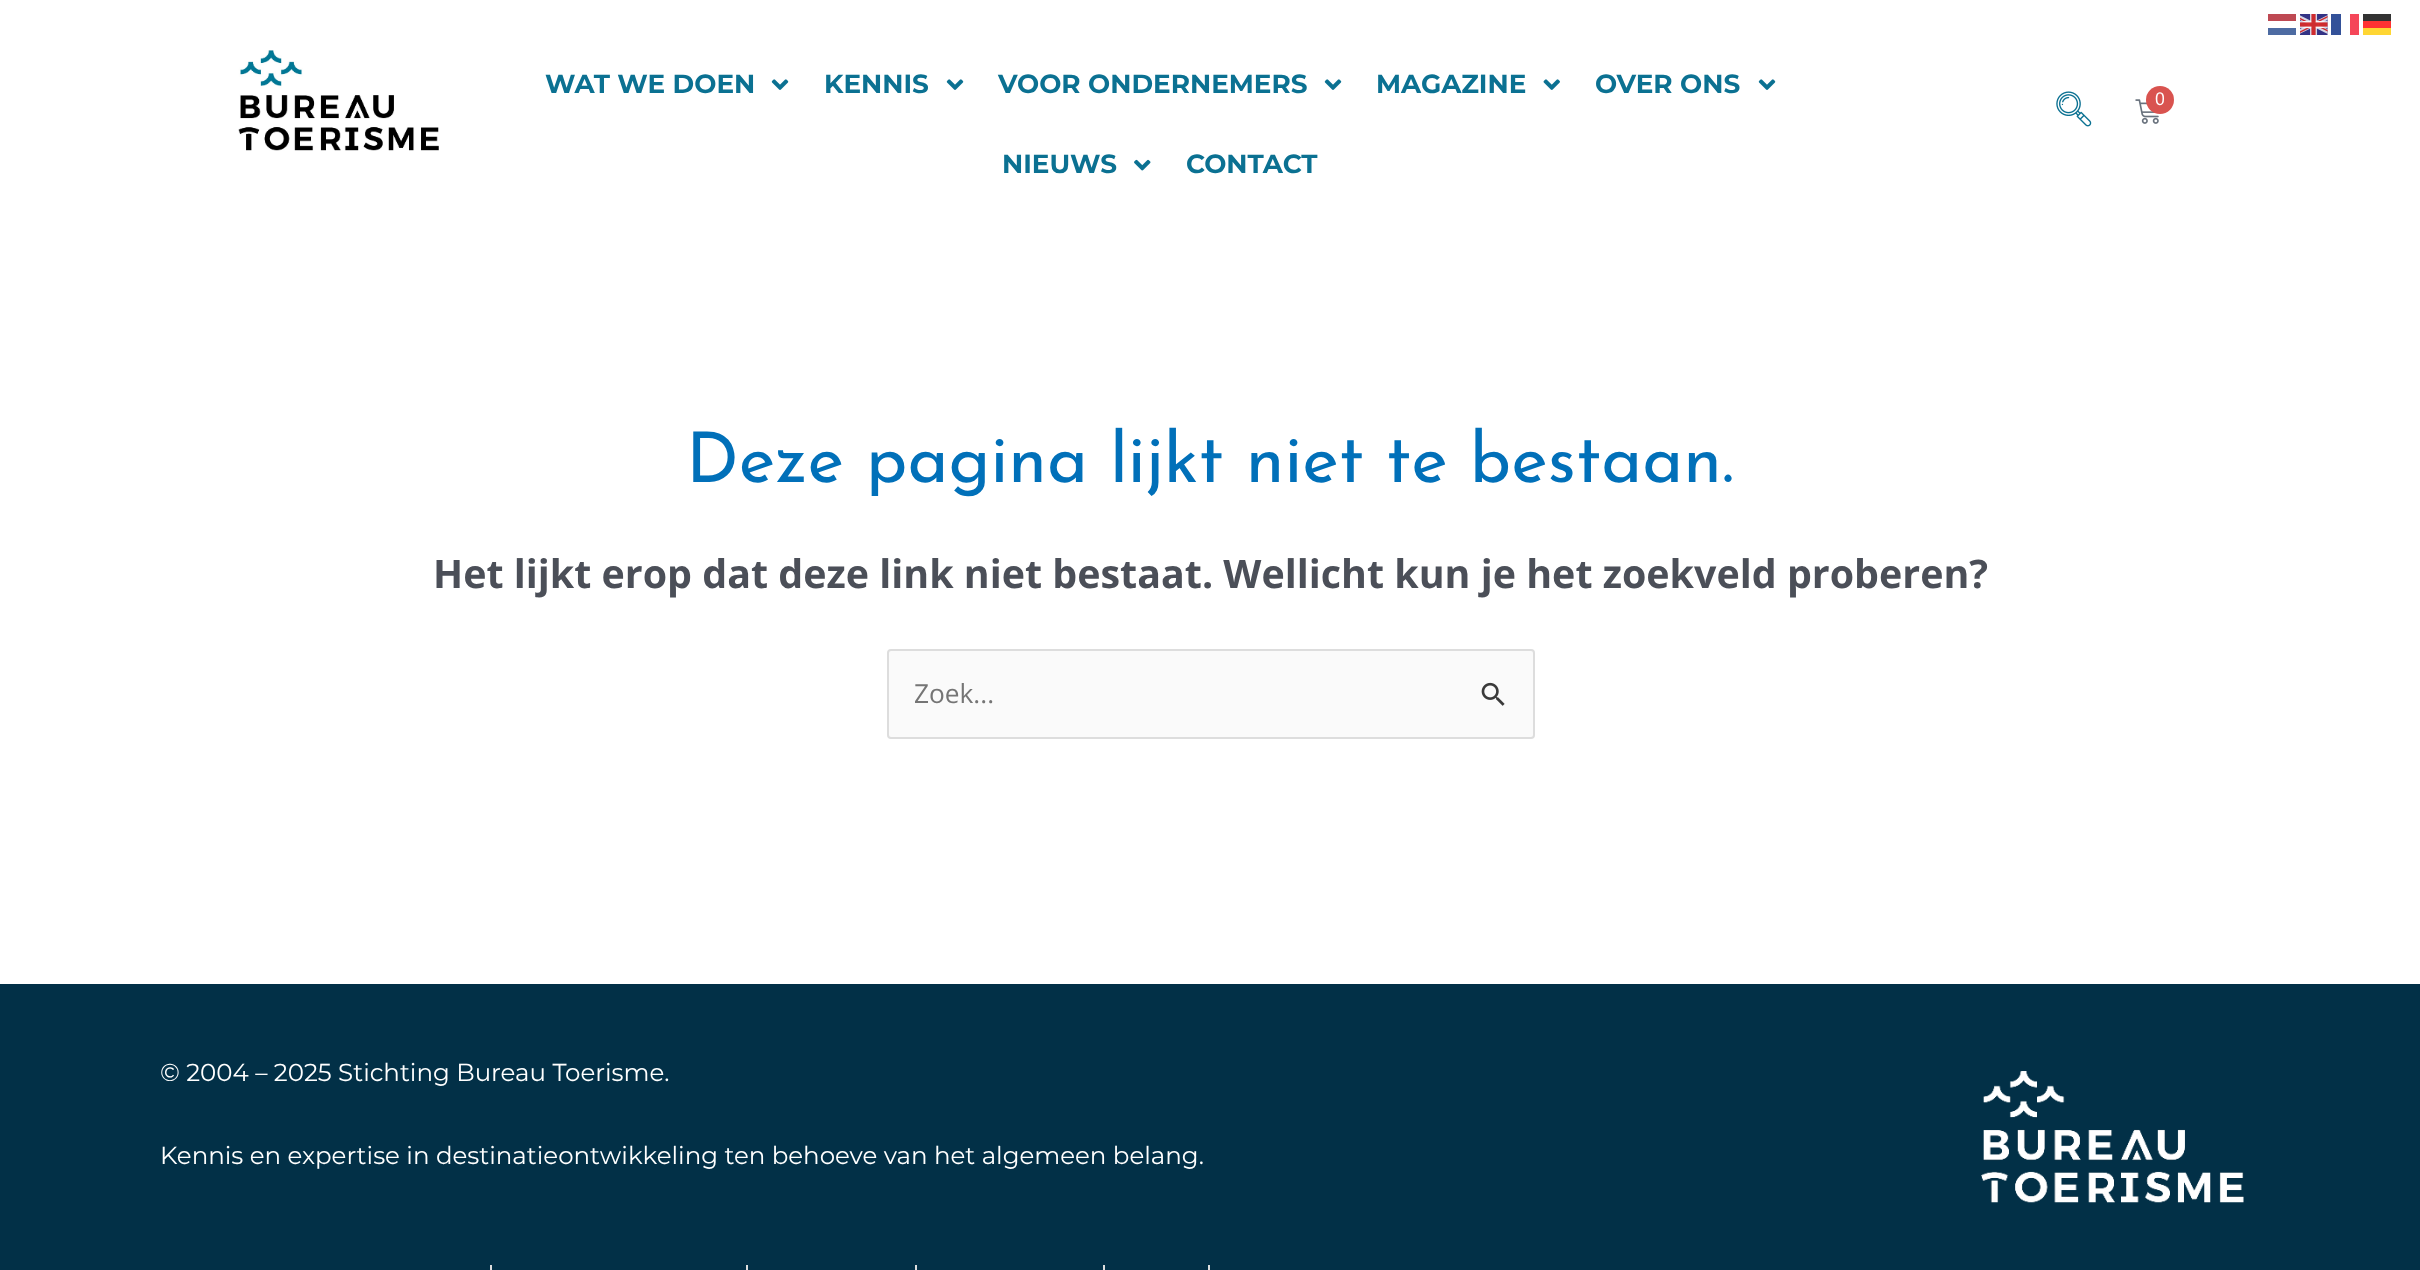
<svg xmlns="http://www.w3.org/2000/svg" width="2420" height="1270">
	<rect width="100%" height="100%" fill="#FFFFFF" />
	<rect x="2268" y="14" width="28" height="7" fill="#BE4953" />
	<image x="2300" y="14" width="28" height="21" href="assets/img1.png" />
	<rect x="2331" y="14" width="10" height="21" fill="#335199" />
	<rect x="2350" y="14" width="9" height="21" fill="#F54659" />
	<rect x="2363" y="14" width="28" height="7" fill="#333333" />
	<rect x="2363" y="21" width="28" height="7" fill="#FF3333" />
	<rect x="2268" y="28" width="28" height="7" fill="#4D6BA2" />
	<rect x="2363" y="28" width="28" height="7" fill="#FFD633" />
	<image x="238" y="50" width="201" height="101" href="assets/img2.png" />
	<text x="545" y="93" font-family="Montserrat" font-size="26.25" font-weight="700" fill="#0B7192">WAT WE DOEN</text>
	<image x="771" y="79" width="18" height="11" href="assets/img3.png" />
	<text x="824" y="93" font-family="Montserrat" font-size="26.25" font-weight="700" fill="#0B7192">KENNIS</text>
	<image x="946" y="79" width="18" height="11" href="assets/img3.png" />
	<text x="998" y="93" font-family="Montserrat" font-size="26.25" font-weight="700" fill="#0B7192">VOOR ONDERNEMERS</text>
	<image x="1324" y="79" width="18" height="11" href="assets/img3.png" />
	<text x="1376" y="93" font-family="Montserrat" font-size="26.25" font-weight="700" fill="#0B7192">MAGAZINE</text>
	<image x="1543" y="79" width="17" height="11" href="assets/img4.png" />
	<text x="1595" y="93" font-family="Montserrat" font-size="26.25" font-weight="700" fill="#0B7192">OVER ONS</text>
	<image x="1758" y="79" width="18" height="11" href="assets/img3.png" />
	<text x="1002" y="173" font-family="Montserrat" font-size="26.25" font-weight="700" fill="#0B7192">NIEUWS</text>
	<image x="1134" y="159" width="17" height="12" href="assets/img5.png" />
	<text x="1186" y="173" font-family="Montserrat" font-size="26.25" font-weight="700" fill="#0B7192">CONTACT</text>
	<image x="2056" y="91" width="36" height="36" href="assets/img6.png" />
	<image x="2135" y="99" width="24" height="25" href="assets/img7.png" />
	<circle cx="2160" cy="100" r="14" fill="#D9534F" />
	<text x="2155" y="105" font-family="PT Sans" font-size="18" fill="#FFFFFF">0</text>
	<text x="686" y="482" font-family="Josefin Sans" font-size="70" fill="#0170B9">Deze pagina lijkt niet te bestaan.</text>
	<text x="433" y="588" font-family="Open Sans" font-size="39.4" font-weight="700" fill="#4B4F58">Het lijkt erop dat deze link niet bestaat. Wellicht kun je het zoekveld proberen?</text>
	<rect x="888" y="650" width="646" height="88" rx="3" fill="#FAFAFA" stroke="#DDDDDD" stroke-width="2" />
	<text x="914" y="703" font-family="Open Sans" font-size="26.25" fill="#757575">Zoek...</text>
	<image x="1481" y="682" width="24" height="24" href="assets/img8.png" />
	<rect x="0" y="984" width="2420" height="286" fill="#023047" />
	<g font-family="Montserrat" font-size="24.5" fill="#FFFFFF">
		<text x="160" y="1081">© 2004 – 2025 Stichting Bureau Toerisme.</text>
		<text x="160" y="1164">Kennis en expertise in destinatieontwikkeling ten behoeve van het algemeen belang.</text>
	</g>
	<rect x="490" y="1265" width="2" height="5" fill="#DDDDDD" />
	<rect x="746" y="1265" width="2" height="5" fill="#DDDDDD" />
	<rect x="915" y="1265" width="2" height="5" fill="#DDDDDD" />
	<rect x="1103" y="1265" width="2" height="5" fill="#DDDDDD" />
	<rect x="1208" y="1265" width="2" height="5" fill="#DDDDDD" />
	<image x="1981" y="1071" width="263" height="132" href="assets/img9.png" />
</svg>
